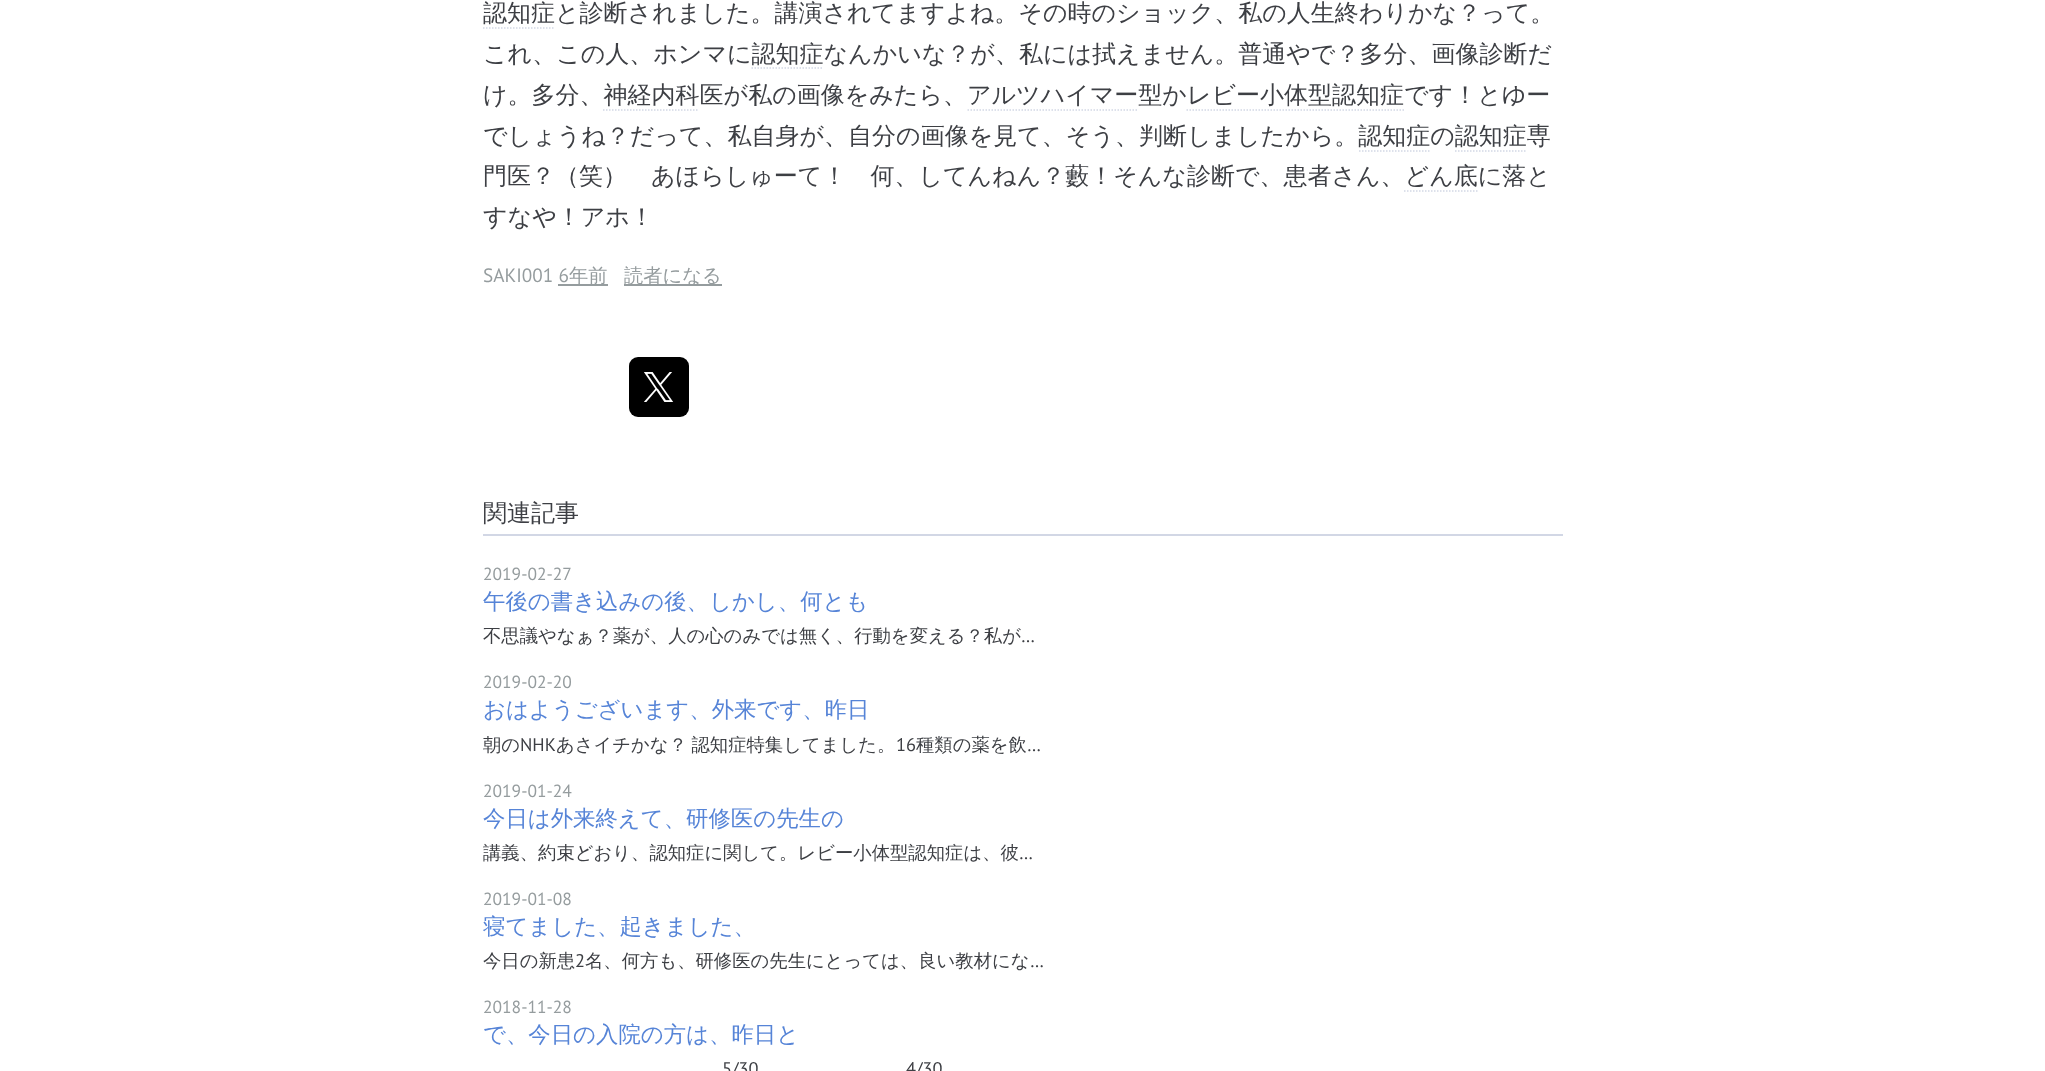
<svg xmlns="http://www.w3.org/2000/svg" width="2045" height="1071">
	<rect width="100%" height="100%" fill="#FFFFFF" />
	<text x="483" y="21" font-family="WenQuanYi Zen Hei" font-size="24" font-weight="500" fill="#3D3F44">認知症と診断されました。講演されてますよね。その時のショック、私の人生終わりかな？って。</text>
	<path d="M483 28H555" fill="none" stroke="#D2D7E5" stroke-width="1.5" stroke-dasharray="1.5 1.5" />
	<text x="483" y="62" font-family="WenQuanYi Zen Hei" font-size="24" font-weight="500" fill="#3D3F44">これ、この人、ホンマに認知症なんかいな？が、私には拭えません。普通やで？多分、画像診断だ</text>
	<path d="M751.5 68H823.5" fill="none" stroke="#D2D7E5" stroke-width="1.5" stroke-dasharray="1.5 1.5" />
	<text x="483" y="103" font-family="WenQuanYi Zen Hei" font-size="24" font-weight="500" fill="#3D3F44">け。多分、神経内科医が私の画像をみたら、アルツハイマー型かレビー小体型認知症です！とゆー</text>
	<path d="M603 110H699" fill="none" stroke="#D2D7E5" stroke-width="1.5" stroke-dasharray="1.5 1.5" />
	<path d="M967.5 110H1138.5" fill="none" stroke="#D2D7E5" stroke-width="1.5" stroke-dasharray="1.5 1.5" />
	<path d="M1186.5 110H1404" fill="none" stroke="#D2D7E5" stroke-width="1.5" stroke-dasharray="1.5 1.5" />
	<text x="483" y="144" font-family="WenQuanYi Zen Hei" font-size="24" font-weight="500" fill="#3D3F44">でしょうね？だって、私自身が、自分の画像を見て、そう、判断しましたから。認知症の認知症専</text>
	<path d="M1359 151H1431" fill="none" stroke="#D2D7E5" stroke-width="1.5" stroke-dasharray="1.5 1.5" />
	<path d="M1455 151H1527" fill="none" stroke="#D2D7E5" stroke-width="1.5" stroke-dasharray="1.5 1.5" />
	<text x="483" y="184" font-family="WenQuanYi Zen Hei" font-size="24" font-weight="500" fill="#3D3F44">門医？（笑）　あほらしゅーて！　何、してんねん？藪！そんな診断で、患者さん、どん底に落と</text>
	<path d="M1404 191H1477.5" fill="none" stroke="#D2D7E5" stroke-width="1.5" stroke-dasharray="1.5 1.5" />
	<text x="483" y="225" font-family="WenQuanYi Zen Hei" font-size="24" font-weight="500" fill="#3D3F44">すなや！アホ！</text>
	<text x="483" y="282" font-family="PT Sans" font-size="19.25" fill="#959C9E">SAKI001 6</text>
	<rect x="558" y="284" width="50" height="2" fill="#959C9E" />
	<text x="569" y="282" font-family="WenQuanYi Zen Hei" font-size="19.25" font-weight="500" fill="#959C9E">年前</text>
	<rect x="624" y="284" width="98" height="2" fill="#959C9E" />
	<text x="624" y="282" font-family="WenQuanYi Zen Hei" font-size="19.25" font-weight="500" fill="#959C9E">読者になる</text>
	<rect x="629" y="357" width="60" height="60" rx="9" fill="#000000" />
	<image x="644" y="372" width="30" height="30" href="assets/img1.png" />
	<rect x="483" y="534" width="1080" height="2" fill="#D2D7E5" />
	<text x="483" y="521" font-family="WenQuanYi Zen Hei" font-size="24" font-weight="500" fill="#3D3F44">関連記事</text>
	<text x="483" y="580" font-family="PT Sans" font-size="17.5" fill="#959C9E">2019-02-27</text>
	<text x="483" y="609" font-family="WenQuanYi Zen Hei" font-size="22.4" font-weight="500" fill="#5684D7">午後の書き込みの後、しかし、何とも</text>
	<text x="483" y="642" font-family="WenQuanYi Zen Hei" font-size="18.35" font-weight="500" fill="#3D3F44">不思議やなぁ？薬が、人の心のみでは無く、行動を変える？私が</text>
	<text x="1021" y="642" font-family="PT Sans" font-size="18.35" fill="#3D3F44">…</text>
	<text x="483" y="688" font-family="PT Sans" font-size="17.5" fill="#959C9E">2019-02-20</text>
	<text x="483" y="717" font-family="WenQuanYi Zen Hei" font-size="22.4" font-weight="500" fill="#5684D7">おはようございます、外来です、昨日</text>
	<text x="483" y="751" font-family="WenQuanYi Zen Hei" font-size="18.35" font-weight="500" fill="#3D3F44">朝の</text>
	<text x="520" y="751" font-family="PT Sans" font-size="18.35" fill="#3D3F44">NHK</text>
	<text x="556" y="751" word-spacing="-1" font-family="WenQuanYi Zen Hei" font-size="18.35" font-weight="500" fill="#3D3F44">あさイチかな？ 認知症特集してました。</text>
	<text x="896" y="751" font-family="PT Sans" font-size="18.35" fill="#3D3F44">16</text>
	<text x="916" y="751" font-family="WenQuanYi Zen Hei" font-size="18.35" font-weight="500" fill="#3D3F44">種類の薬を飲</text>
	<text x="1027" y="751" font-family="PT Sans" font-size="18.35" fill="#3D3F44">…</text>
	<text x="483" y="797" font-family="PT Sans" font-size="17.5" fill="#959C9E">2019-01-24</text>
	<text x="483" y="826" font-family="WenQuanYi Zen Hei" font-size="22.4" font-weight="500" fill="#5684D7">今日は外来終えて、研修医の先生の</text>
	<text x="483" y="859" font-family="WenQuanYi Zen Hei" font-size="18.35" font-weight="500" fill="#3D3F44">講義、約束どおり、認知症に関して。レビー小体型認知症は、彼</text>
	<text x="1019" y="859" font-family="PT Sans" font-size="18.35" fill="#3D3F44">…</text>
	<text x="483" y="905" font-family="PT Sans" font-size="17.5" fill="#959C9E">2019-01-08</text>
	<text x="483" y="934" font-family="WenQuanYi Zen Hei" font-size="22.4" font-weight="500" fill="#5684D7">寝てました、起きました、</text>
	<text x="483" y="967" font-family="WenQuanYi Zen Hei" font-size="18.35" font-weight="500" fill="#3D3F44">今日の新患</text>
	<text x="575" y="967" font-family="PT Sans" font-size="18.35" fill="#3D3F44">2</text>
	<text x="585" y="967" font-family="WenQuanYi Zen Hei" font-size="18.35" font-weight="500" fill="#3D3F44">名、何方も、研修医の先生にとっては、良い教材にな</text>
	<text x="1030" y="967" font-family="PT Sans" font-size="18.35" fill="#3D3F44">…</text>
	<text x="483" y="1013" font-family="PT Sans" font-size="17.5" fill="#959C9E">2018-11-28</text>
	<text x="483" y="1042" font-family="WenQuanYi Zen Hei" font-size="22.4" font-weight="500" fill="#5684D7">で、今日の入院の方は、昨日と</text>
	<g font-family="PT Sans" font-size="18.35" fill="#3D3F44">
		<text x="722" y="1075">5/30</text>
		<text x="906" y="1075">4/30</text>
	</g>
</svg>
